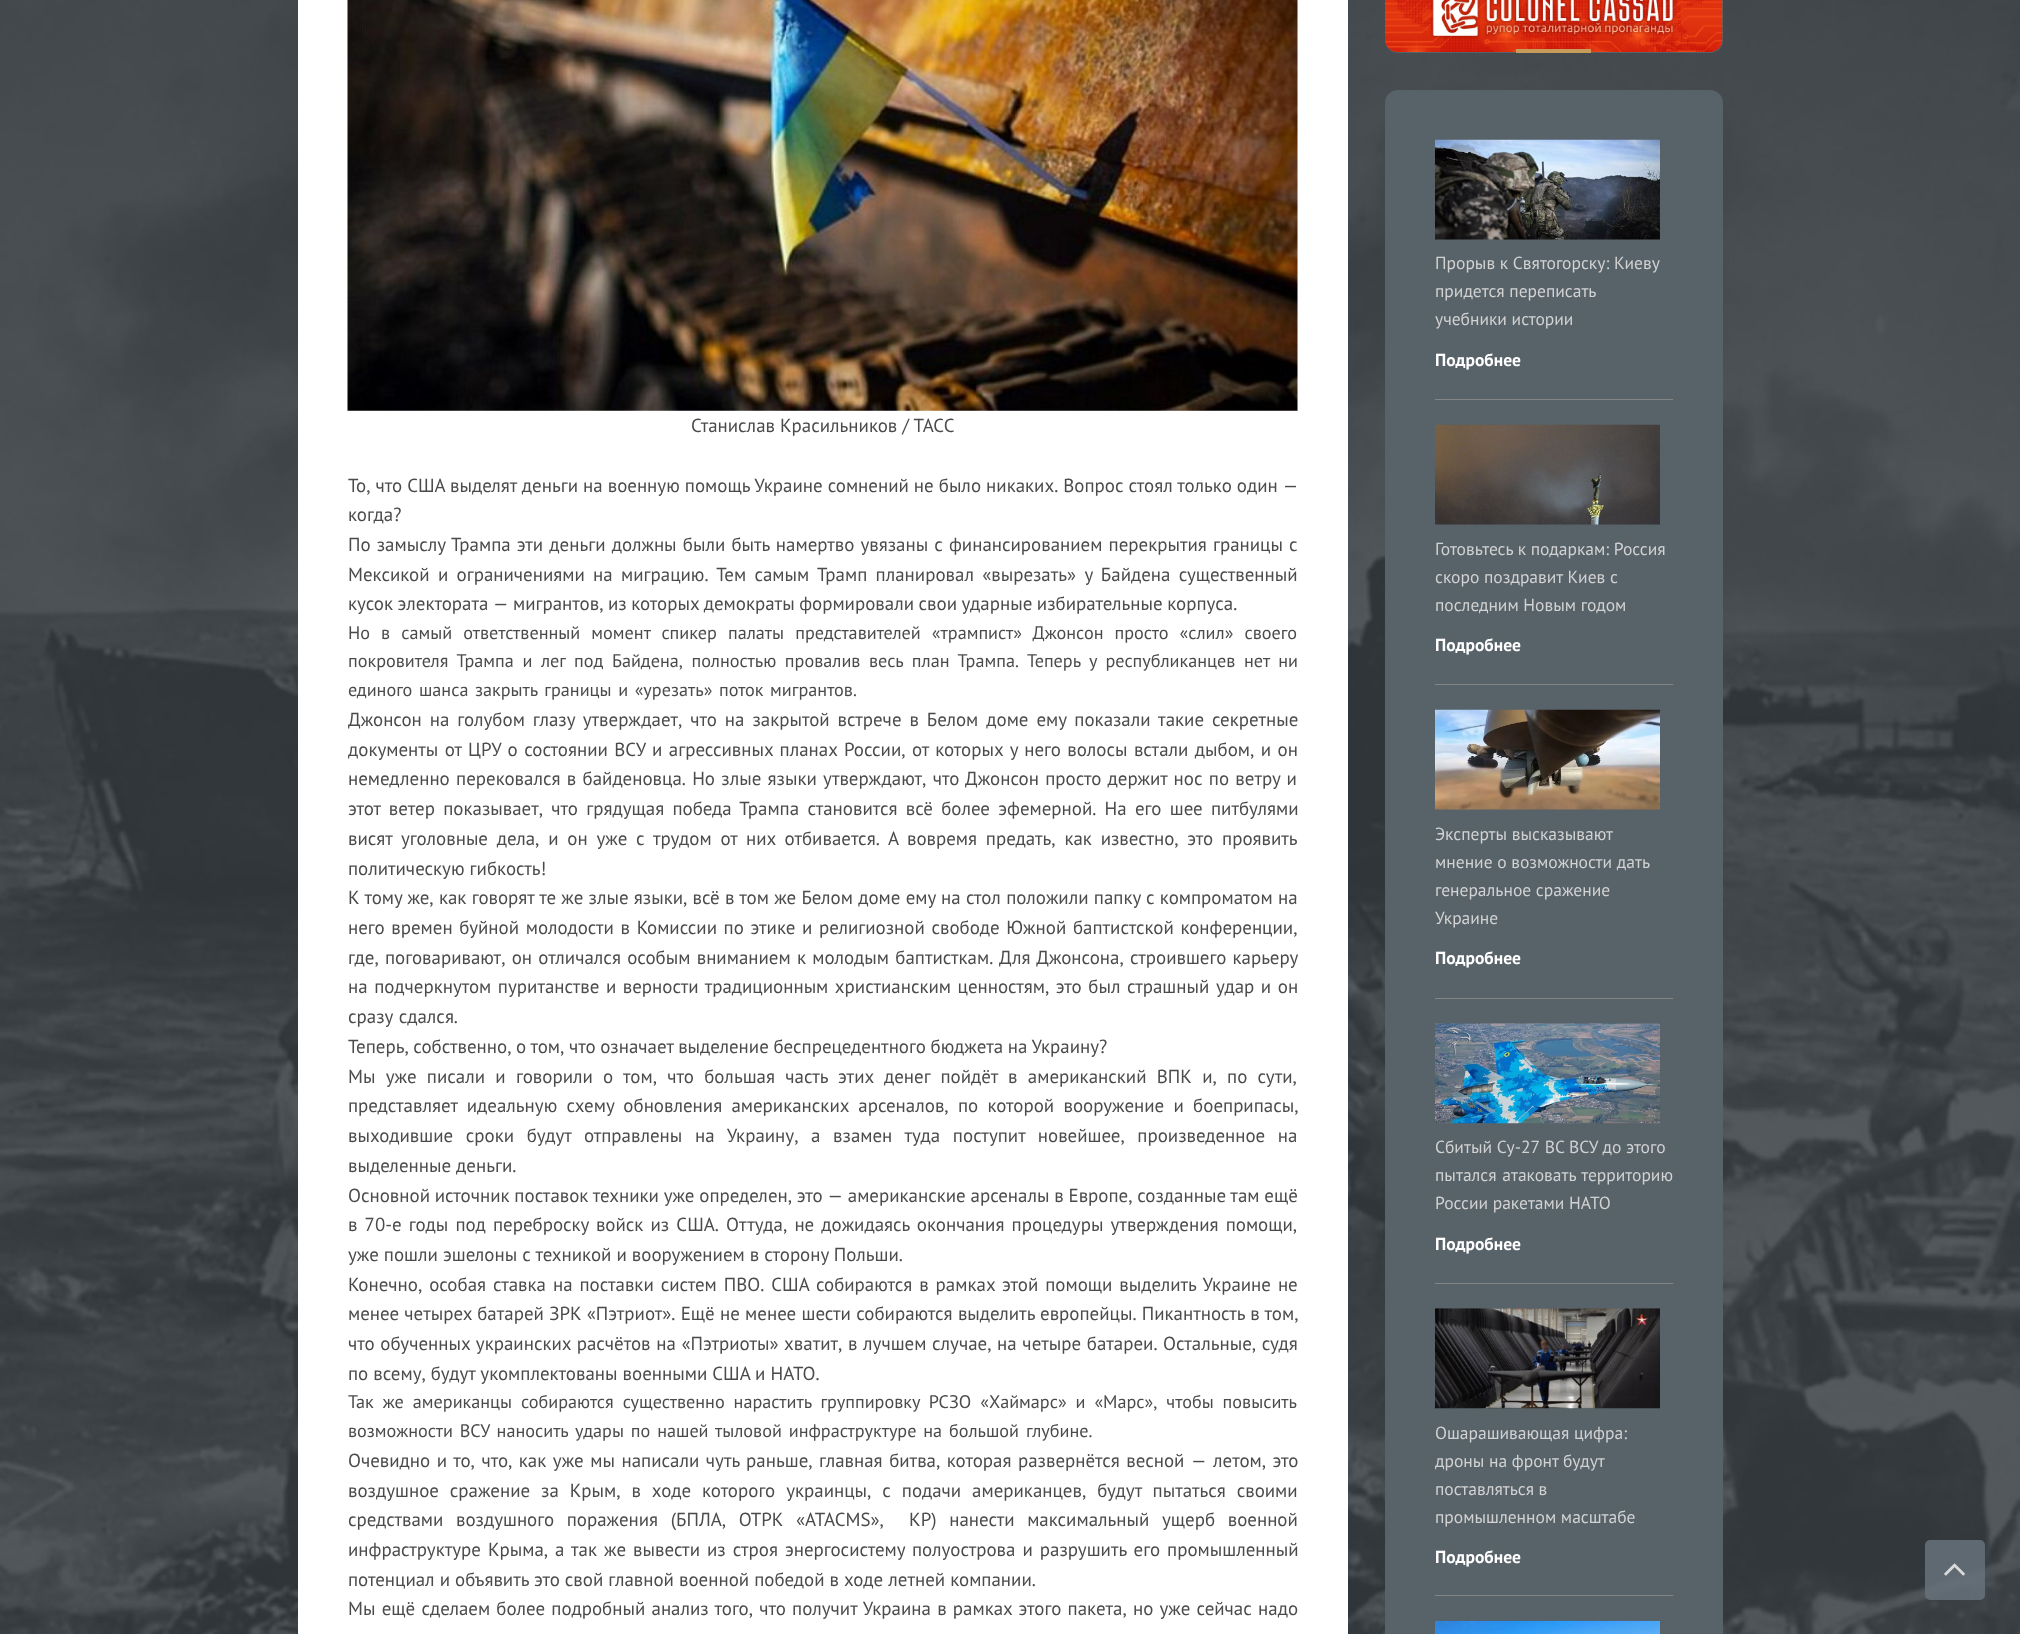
<svg xmlns="http://www.w3.org/2000/svg" width="2020" height="1634">
	<rect width="100%" height="100%" fill="#FFFFFF" />
	<image x="0" y="0" width="2020" height="1634" href="assets/img1.png" />
	<rect x="298" y="0" width="1050" height="1634" fill="#FFFFFF" />
	<image x="347" y="0" width="951" height="411" href="assets/img2.png" />
	<g font-family="PT Sans" font-size="18.93" fill="#4B4B4B">
		<text x="691" y="432">Станислав Красильников / ТАСС</text>
		<text x="348" y="492">То, что США выделят деньги на военную помощь Украине сомнений не было никаких. Вопрос стоял только один —</text>
		<text x="348" y="521">когда?</text>
		<text x="348" y="551" word-spacing="1.1">По замыслу Трампа эти деньги должны были быть намертво увязаны с финансированием перекрытия границы с</text>
		<text x="348" y="581" word-spacing="3.25">Мексикой и ограничениями на миграцию. Тем самым Трамп планировал «вырезать» у Байдена существенный</text>
		<text x="348" y="610" word-spacing="-0.5">кусок электората — мигрантов, из которых демократы формировали свои ударные избирательные корпуса.</text>
	</g>
	<g font-family="PT Sans" font-size="18.2" fill="#4B4B4B">
		<text x="348" y="639" word-spacing="6.25">Но в самый ответственный момент спикер палаты представителей «трампист» Джонсон просто «слил» своего</text>
		<text x="348" y="667" word-spacing="3.75">покровителя Трампа и лег под Байдена, полностью провалив весь план Трампа. Теперь у республиканцев нет ни</text>
		<text x="348" y="696" word-spacing="1.75">единого шанса закрыть границы и «урезать» поток мигрантов.</text>
	</g>
	<g font-family="PT Sans" font-size="18.93" fill="#4B4B4B">
		<text x="348" y="726" word-spacing="2.9">Джонсон на голубом глазу утверждает, что на закрытой встрече в Белом доме ему показали такие секретные</text>
		<text x="348" y="756" word-spacing="1.4">документы от ЦРУ о состоянии ВСУ и агрессивных планах России, от которых у него волосы встали дыбом, и он</text>
		<text x="348" y="785" word-spacing="1.25">немедленно перековался в байденовца. Но злые языки утверждают, что Джонсон просто держит нос по ветру и</text>
		<text x="348" y="815" word-spacing="3.25">этот ветер показывает, что грядущая победа Трампа становится всё более эфемерной. На его шее питбулями</text>
		<text x="348" y="845" word-spacing="3.75">висят уголовные дела, и он уже с трудом от них отбивается. А вовремя предать, как известно, это проявить</text>
		<text x="348" y="875">политическую гибкость!</text>
		<text x="348" y="904" word-spacing="0.25">К тому же, как говорят те же злые языки, всё в том же Белом доме ему на стол положили папку с компроматом на</text>
		<text x="348" y="934" word-spacing="1.6">него времен буйной молодости в Комиссии по этике и религиозной свободе Южной баптистской конференции,</text>
		<text x="348" y="964" word-spacing="1.25">где, поговаривают, он отличался особым вниманием к молодым баптисткам. Для Джонсона, строившего карьеру</text>
		<text x="348" y="993" word-spacing="1.5">на подчеркнутом пуританстве и верности традиционным христианским ценностям, это был страшный удар и он</text>
		<text x="348" y="1023" word-spacing="1">сразу сдался.</text>
		<text x="348" y="1053" word-spacing="-0.4">Теперь, собственно, о том, что означает выделение беспрецедентного бюджета на Украину?</text>
		<text x="348" y="1083" word-spacing="5.25">Мы уже писали и говорили о том, что большая часть этих денег пойдёт в американский ВПК и, по сути,</text>
		<text x="348" y="1112" word-spacing="4.25">представляет идеальную схему обновления американских арсеналов, по которой вооружение и боеприпасы,</text>
		<text x="348" y="1142" word-spacing="7.6">выходившие сроки будут отправлены на Украину, а взамен туда поступит новейшее, произведенное на</text>
		<text x="348" y="1172">выделенные деньги.</text>
		<text x="348" y="1202" word-spacing="-0.25">Основной источник поставок техники уже определен, это — американские арсеналы в Европе, созданные там ещё</text>
		<text x="348" y="1231" word-spacing="2.1">в 70-е годы под переброску войск из США. Оттуда, не дожидаясь окончания процедуры утверждения помощи,</text>
		<text x="348" y="1261">уже пошли эшелоны с техникой и вооружением в сторону Польши.</text>
		<text x="348" y="1291" word-spacing="1.9">Конечно, особая ставка на поставки систем ПВО. США собираются в рамках этой помощи выделить Украине не</text>
		<text x="348" y="1320" word-spacing="0.25">менее четырех батарей ЗРК «Пэтриот». Ещё не менее шести собираются выделить европейцы. Пикантность в том,</text>
		<text x="348" y="1350" word-spacing="0.6">что обученных украинских расчётов на «Пэтриоты» хватит, в лучшем случае, на четыре батареи. Остальные, судя</text>
		<text x="348" y="1380">по всему, будут укомплектованы военными США и НАТО.</text>
	</g>
	<g font-family="PT Sans" font-size="18.2" fill="#4B4B4B">
		<text x="348" y="1408" word-spacing="4.1">Так же американцы собираются существенно нарастить группировку РСЗО «Хаймарс» и «Марс», чтобы повысить</text>
		<text x="348" y="1437" word-spacing="2">возможности ВСУ наносить удары по нашей тыловой инфраструктуре на большой глубине.</text>
	</g>
	<g font-family="PT Sans" font-size="18.93" fill="#4B4B4B">
		<text x="348" y="1467" word-spacing="1.5">Очевидно и то, что, как уже мы написали чуть раньше, главная битва, которая развернётся весной — летом, это</text>
		<text x="348" y="1497" word-spacing="5.9">воздушное сражение за Крым, в ходе которого украинцы, с подачи американцев, будут пытаться своими</text>
		<text x="348" y="1526" word-spacing="7.6" xml:space="preserve">средствами воздушного поражения (БПЛА, ОТРК «ATACMS»,  КР) нанести максимальный ущерб военной</text>
		<text x="348" y="1556" word-spacing="2">инфраструктуре Крыма, а так же вывести из строя энергосистему полуострова и разрушить его промышленный</text>
		<text x="348" y="1586">потенциал и объявить это свой главной военной победой в ходе летней компании.</text>
		<text x="348" y="1615" word-spacing="1.2">Мы ещё сделаем более подробный анализ того, что получит Украина в рамках этого пакета, но уже сейчас надо</text>
	</g>
	<rect x="1385" y="-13" width="338" height="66" rx="13" fill="#576269" />
	<image x="1385" y="0" width="338" height="52" href="assets/img3.png" />
	<rect x="1516" y="49" width="75" height="4" fill="#C79C5A" />
	<rect x="1385" y="90" width="338" height="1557" rx="13" fill="#576269" />
	<rect x="1435" y="399" width="238" height="1" fill="#858585" />
	<image x="1435" y="139" width="225" height="101" href="assets/img4.png" />
	<g font-family="PT Sans" font-size="17.5" fill="#D2D2D2">
		<text x="1435" y="269">Прорыв к Святогорску: Киеву</text>
		<text x="1435" y="297">придется переписать</text>
		<text x="1435" y="325">учебники истории</text>
	</g>
	<text x="1435" y="366" font-family="PT Sans" font-size="17.5" font-weight="700" fill="#FFFFFF">Подробнее</text>
	<rect x="1435" y="684" width="238" height="1" fill="#858585" />
	<image x="1435" y="424" width="225" height="101" href="assets/img5.png" />
	<g font-family="PT Sans" font-size="17.5" fill="#D2D2D2">
		<text x="1435" y="555">Готовьтесь к подаркам: Россия</text>
		<text x="1435" y="583">скоро поздравит Киев с</text>
		<text x="1435" y="611">последним Новым годом</text>
	</g>
	<text x="1435" y="651" font-family="PT Sans" font-size="17.5" font-weight="700" fill="#FFFFFF">Подробнее</text>
	<rect x="1435" y="998" width="238" height="1" fill="#858585" />
	<image x="1435" y="709" width="225" height="101" href="assets/img6.png" />
	<g font-family="PT Sans" font-size="17.5" fill="#D2D2D2">
		<text x="1435" y="840">Эксперты высказывают</text>
		<text x="1435" y="868">мнение о возможности дать</text>
		<text x="1435" y="896">генеральное сражение</text>
		<text x="1435" y="924">Украине</text>
	</g>
	<text x="1435" y="964" font-family="PT Sans" font-size="17.5" font-weight="700" fill="#FFFFFF">Подробнее</text>
	<rect x="1435" y="1283" width="238" height="1" fill="#858585" />
	<image x="1435" y="1023" width="225" height="101" href="assets/img7.png" />
	<g font-family="PT Sans" font-size="17.5" fill="#D2D2D2">
		<text x="1435" y="1153">Сбитый Су-27 ВС ВСУ до этого</text>
		<text x="1435" y="1181" word-spacing="1">пытался атаковать территорию</text>
		<text x="1435" y="1209">России ракетами НАТО</text>
	</g>
	<text x="1435" y="1250" font-family="PT Sans" font-size="17.5" font-weight="700" fill="#FFFFFF">Подробнее</text>
	<rect x="1435" y="1595" width="238" height="1" fill="#858585" />
	<image x="1435" y="1308" width="225" height="101" href="assets/img8.png" />
	<g font-family="PT Sans" font-size="17.5" fill="#D2D2D2">
		<text x="1435" y="1439">Ошарашивающая цифра:</text>
		<text x="1435" y="1467">дроны на фронт будут</text>
		<text x="1435" y="1495">поставляться в</text>
		<text x="1435" y="1523">промышленном масштабе</text>
	</g>
	<text x="1435" y="1563" font-family="PT Sans" font-size="17.5" font-weight="700" fill="#FFFFFF">Подробнее</text>
	<image x="1435" y="1620" width="225" height="14" href="assets/img9.png" />
	<rect x="1925" y="1540" width="60" height="60" rx="5" fill="#66727B" fill-opacity="0.85" />
	<image x="1944" y="1563" width="21" height="13" href="assets/img10.png" />
</svg>
